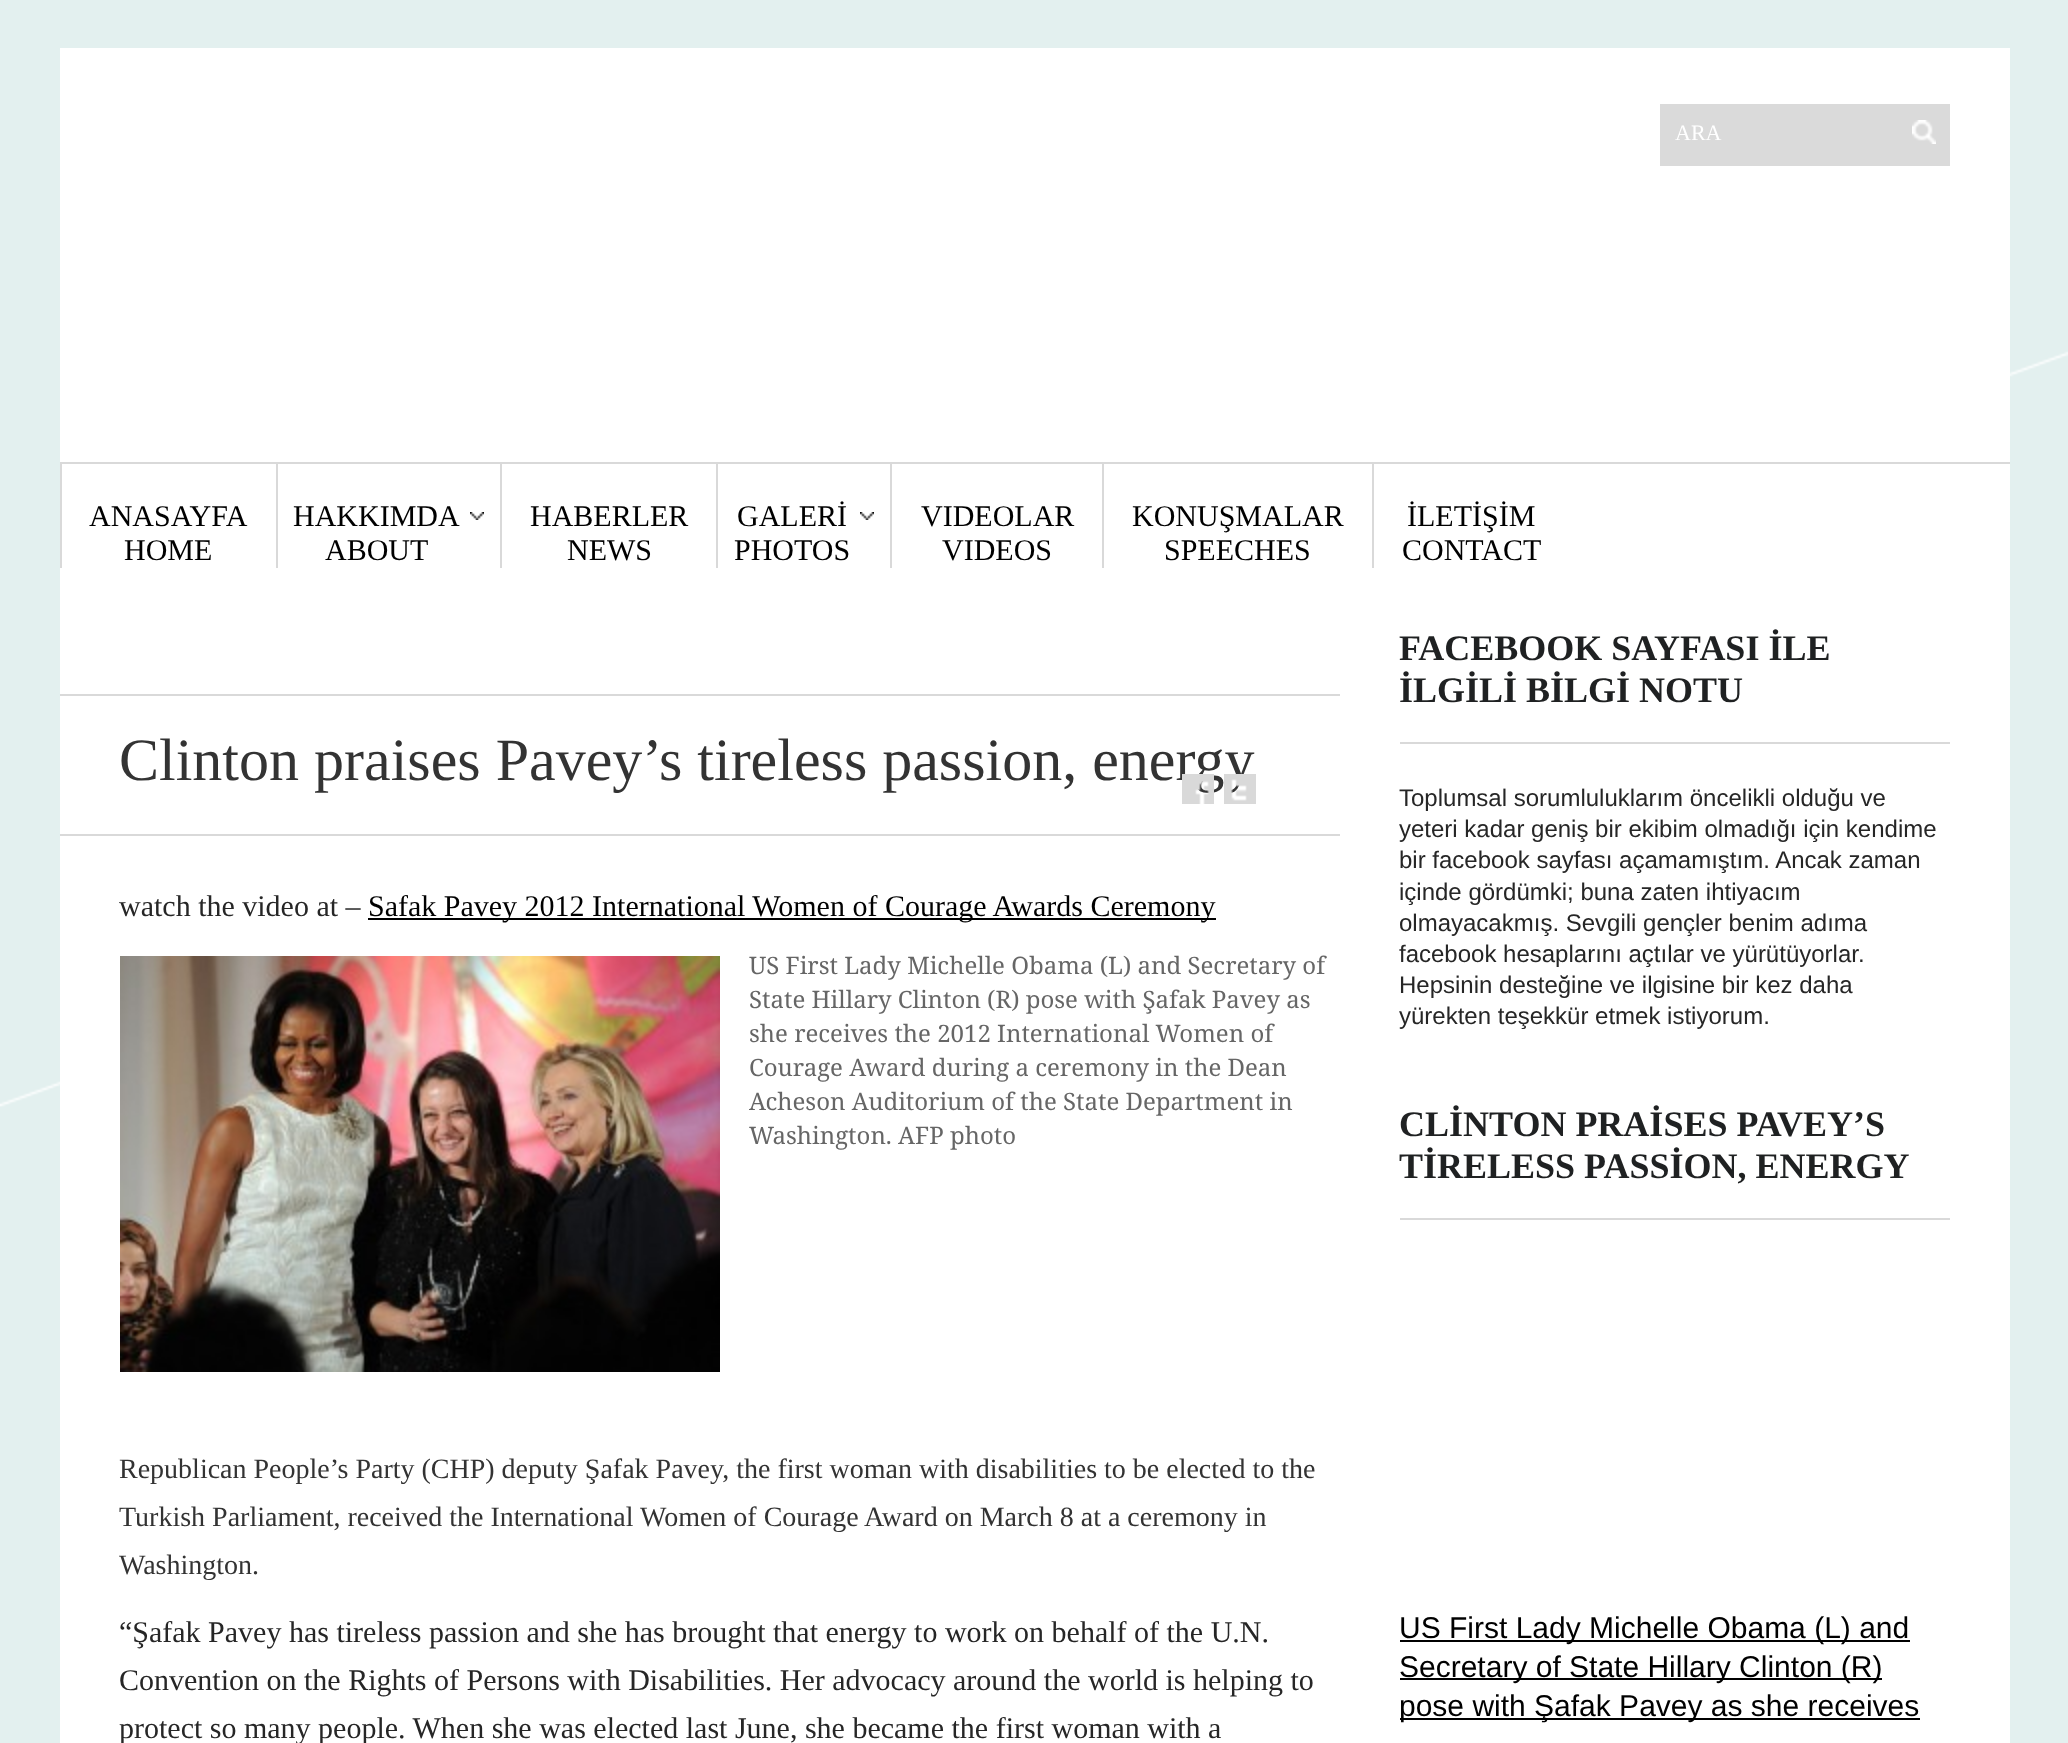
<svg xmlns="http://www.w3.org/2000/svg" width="2068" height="1743">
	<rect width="100%" height="100%" fill="#E3F0EF" />
	<image x="0" y="351" width="2068" height="756" href="assets/img1.png" />
	<rect x="60" y="48" width="1950" height="1695" fill="#FFFFFF" />
	<rect x="1660" y="104" width="290" height="62" fill="#DADADA" />
	<text x="1675" y="140" font-family="Liberation Serif" font-size="22" fill="#FFFFFF">ARA</text>
	<image x="1912" y="120" width="24" height="24" href="assets/img2.png" />
	<rect x="60" y="462" width="1950" height="2" fill="#D9D9D9" />
	<rect x="60" y="464" width="2" height="104" fill="#D9D9D9" />
	<g font-family="Liberation Serif" font-size="30" fill="#000000">
		<text x="89" y="526">ANASAYFA</text>
		<text x="124" y="560">HOME</text>
	</g>
	<rect x="276" y="464" width="2" height="104" fill="#D9D9D9" />
	<image x="470" y="512" width="14" height="8" href="assets/img3.png" />
	<g font-family="Liberation Serif" font-size="30" fill="#000000">
		<text x="293" y="526">HAKKIMDA</text>
		<text x="325" y="560">ABOUT</text>
	</g>
	<rect x="500" y="464" width="2" height="104" fill="#D9D9D9" />
	<g font-family="Liberation Serif" font-size="30" fill="#000000">
		<text x="530" y="526">HABERLER</text>
		<text x="567" y="560">NEWS</text>
	</g>
	<rect x="716" y="464" width="2" height="104" fill="#D9D9D9" />
	<image x="860" y="512" width="14" height="8" href="assets/img3.png" />
	<g font-family="Liberation Serif" font-size="30" fill="#000000">
		<text x="737" y="526">GALERİ</text>
		<text x="734" y="560">PHOTOS</text>
	</g>
	<rect x="890" y="464" width="2" height="104" fill="#D9D9D9" />
	<g font-family="Liberation Serif" font-size="30" fill="#000000">
		<text x="921" y="526">VIDEOLAR</text>
		<text x="942" y="560">VIDEOS</text>
	</g>
	<rect x="1102" y="464" width="2" height="104" fill="#D9D9D9" />
	<g font-family="Liberation Serif" font-size="30" fill="#000000">
		<text x="1132" y="526">KONUŞMALAR</text>
		<text x="1164" y="560">SPEECHES</text>
	</g>
	<rect x="1372" y="464" width="2" height="104" fill="#D9D9D9" />
	<g font-family="Liberation Serif" font-size="30" fill="#000000">
		<text x="1407" y="526">İLETİŞİM</text>
		<text x="1402" y="560">CONTACT</text>
	</g>
	<rect x="60" y="694" width="1280" height="2" fill="#D9D9D9" />
	<rect x="60" y="834" width="1280" height="2" fill="#D9D9D9" />
	<text x="119" y="780" font-family="Liberation Serif" font-size="60" fill="#333333">Clinton praises Pavey’s tireless passion, energy</text>
	<image x="1182" y="774" width="32" height="30" href="assets/img4.png" />
	<image x="1224" y="774" width="32" height="30" href="assets/img5.png" />
	<text x="119" y="916" font-family="Liberation Serif" font-size="30" fill="#262626">watch the video at –</text>
	<rect x="368" y="918" width="848" height="2" fill="#000000" />
	<text x="368" y="916" font-family="Liberation Serif" font-size="30" fill="#000000">Safak Pavey 2012 International Women of Courage Awards Ceremony</text>
	<image x="120" y="956" width="600" height="416" href="assets/img6.png" />
	<g font-family="Noto Serif" font-size="24" fill="#666666">
		<text x="749" y="974">US First Lady Michelle Obama (L) and Secretary of</text>
		<text x="749" y="1008">State Hillary Clinton (R) pose with Şafak Pavey as</text>
		<text x="749" y="1042">she receives the 2012 International Women of</text>
		<text x="749" y="1076">Courage Award during a ceremony in the Dean</text>
		<text x="749" y="1110">Acheson Auditorium of the State Department in</text>
		<text x="749" y="1144">Washington. AFP photo</text>
	</g>
	<g font-family="Liberation Serif" font-size="28" fill="#333333">
		<text x="119" y="1478">Republican People’s Party (CHP) deputy Şafak Pavey, the first woman with disabilities to be elected to the</text>
		<text x="119" y="1526">Turkish Parliament, received the International Women of Courage Award on March 8 at a ceremony in</text>
		<text x="119" y="1574">Washington.</text>
	</g>
	<g font-family="Liberation Serif" font-size="30" fill="#262626">
		<text x="119" y="1642">“Şafak Pavey has tireless passion and she has brought that energy to work on behalf of the U.N.</text>
		<text x="119" y="1690">Convention on the Rights of Persons with Disabilities. Her advocacy around the world is helping to</text>
		<text x="119" y="1738">protect so many people. When she was elected last June, she became the first woman with a</text>
	</g>
	<rect x="1400" y="742" width="550" height="2" fill="#D9D9D9" />
	<g font-family="Liberation Serif" font-size="36" font-weight="700" fill="#1F2122">
		<text x="1399" y="660">FACEBOOK SAYFASI İLE</text>
		<text x="1399" y="702">İLGİLİ BİLGİ NOTU</text>
	</g>
	<g font-family="Liberation Sans" font-size="24" fill="#262626">
		<text x="1399" y="806">Toplumsal sorumluluklarım öncelikli olduğu ve</text>
		<text x="1399" y="837">yeteri kadar geniş bir ekibim olmadığı için kendime</text>
		<text x="1399" y="868">bir facebook sayfası açamamıştım. Ancak zaman</text>
		<text x="1399" y="900">içinde gördümki; buna zaten ihtiyacım</text>
		<text x="1399" y="931">olmayacakmış. Sevgili gençler benim adıma</text>
		<text x="1399" y="962">facebook hesaplarını açtılar ve yürütüyorlar.</text>
		<text x="1399" y="993">Hepsinin desteğine ve ilgisine bir kez daha</text>
		<text x="1399" y="1024">yürekten teşekkür etmek istiyorum.</text>
	</g>
	<rect x="1400" y="1218" width="550" height="2" fill="#D9D9D9" />
	<g font-family="Liberation Serif" font-size="36" font-weight="700" fill="#1F2122">
		<text x="1399" y="1136">CLİNTON PRAİSES PAVEY’S</text>
		<text x="1399" y="1178">TİRELESS PASSİON, ENERGY</text>
	</g>
	<rect x="1400" y="1640" width="510" height="2" fill="#000000" />
	<text x="1399" y="1638" font-family="Liberation Sans" font-size="30" fill="#000000">US First Lady Michelle Obama (L) and</text>
	<rect x="1400" y="1678" width="482" height="2" fill="#000000" />
	<text x="1399" y="1677" font-family="Liberation Sans" font-size="30" fill="#000000">Secretary of State Hillary Clinton (R)</text>
	<rect x="1400" y="1718" width="520" height="2" fill="#000000" />
	<text x="1399" y="1716" font-family="Liberation Sans" font-size="30" fill="#000000">pose with Şafak Pavey as she receives</text>
</svg>
